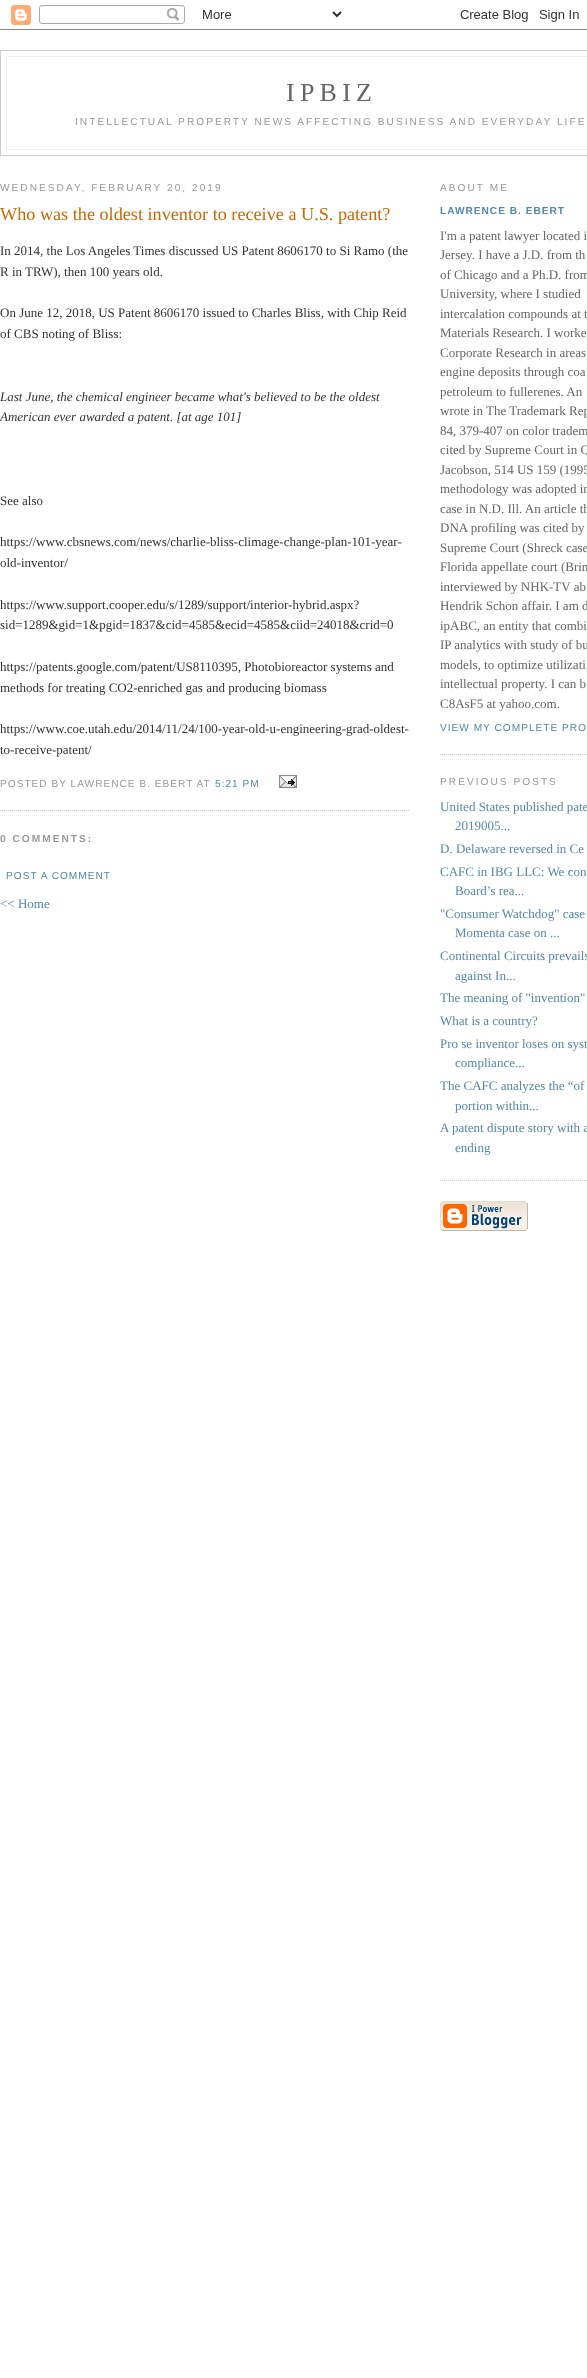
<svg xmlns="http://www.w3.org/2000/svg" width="587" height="2378">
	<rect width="100%" height="100%" fill="#FFFFFF" />
	<image x="0" y="5" width="587" height="25" href="assets/img1.png" />
	<rect x="0.5" y="50.5" width="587" height="105" fill="none" stroke="#CCCCCC" />
	<rect x="6" y="56" width="581" height="1" fill="#EEEEEE" />
	<rect x="6" y="56" width="1" height="59" fill="#EEEEEE" />
	<text x="286" y="101" font-family="Liberation Serif" font-size="26" letter-spacing="5.25" fill="#666666">IPBIZ</text>
	<rect x="6" y="149" width="581" height="1" fill="#EEEEEE" />
	<rect x="6" y="115" width="1" height="35" fill="#EEEEEE" />
	<g font-family="Liberation Sans" font-size="10.15" letter-spacing="2.03" fill="#999999">
		<text x="75" y="125">INTELLECTUAL PROPERTY NEWS AFFECTING BUSINESS AND EVERYDAY LIFE</text>
		<text x="0" y="191">WEDNESDAY, FEBRUARY 20, 2019</text>
	</g>
	<path d="M0 810.5H410" fill="none" stroke="#CCCCCC" stroke-dasharray="1 1" />
	<text x="0" y="220" font-family="Liberation Serif" font-size="18.2" fill="#CC6600">Who was the oldest inventor to receive a U.S. patent?</text>
	<g font-family="Liberation Serif" font-size="13" fill="#333333">
		<text x="0" y="255">In 2014, the Los Angeles Times discussed US Patent 8606170 to Si Ramo (the</text>
		<text x="0" y="276">R in TRW), then 100 years old.</text>
		<text x="0" y="317">On June 12, 2018, US Patent 8606170 issued to Charles Bliss, with Chip Reid</text>
		<text x="0" y="338">of CBS noting of Bliss:</text>
	</g>
	<g font-family="Liberation Serif" font-size="13" font-style="italic" fill="#333333">
		<text x="0" y="401">Last June, the chemical engineer became what's believed to be the oldest</text>
		<text x="0" y="421">American ever awarded a patent. [at age 101]</text>
	</g>
	<g font-family="Liberation Serif" font-size="13" fill="#333333">
		<text x="0" y="505">See also</text>
		<text x="0" y="546">https://www.cbsnews.com/news/charlie-bliss-climage-change-plan-101-year-</text>
		<text x="0" y="567">old-inventor/</text>
		<text x="0" y="609">https://www.support.cooper.edu/s/1289/support/interior-hybrid.aspx?</text>
		<text x="0" y="629">sid=1289&amp;gid=1&amp;pgid=1837&amp;cid=4585&amp;ecid=4585&amp;ciid=24018&amp;crid=0</text>
		<text x="0" y="671">https://patents.google.com/patent/US8110395, Photobioreactor systems and</text>
		<text x="0" y="692">methods for treating CO2-enriched gas and producing biomass</text>
		<text x="0" y="733">https://www.coe.utah.edu/2014/11/24/100-year-old-u-engineering-grad-oldest-</text>
		<text x="0" y="754">to-receive-patent/</text>
	</g>
	<text x="0" y="787" font-family="Liberation Sans" font-size="10.15" letter-spacing="1" fill="#999999">POSTED BY LAWRENCE B. EBERT AT</text>
	<text x="215" y="787" font-family="Liberation Sans" font-size="10.15" letter-spacing="1" fill="#5588AA">5:21 PM</text>
	<image x="279" y="775" width="18" height="13" href="assets/img2.png" />
	<text x="0" y="842" font-family="Liberation Sans" font-size="10.15" font-weight="700" letter-spacing="2.03" fill="#999999">0 COMMENTS:</text>
	<text x="6" y="879" font-family="Liberation Sans" font-size="10.15" letter-spacing="1" fill="#5588AA">POST A COMMENT</text>
	<text x="0" y="908" font-family="Liberation Serif" font-size="13" fill="#5588AA">&lt;&lt; Home</text>
	<path d="M440 754.5H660" fill="none" stroke="#CCCCCC" stroke-dasharray="1 1" />
	<text x="440" y="191" font-family="Liberation Sans" font-size="10.15" letter-spacing="2.03" fill="#999999">ABOUT ME</text>
	<text x="440" y="214" font-family="Liberation Sans" font-size="10.15" font-weight="700" letter-spacing="1" fill="#5588AA">LAWRENCE B. EBERT</text>
	<g font-family="Liberation Serif" font-size="13" fill="#666666">
		<text x="440" y="240">I'm a patent lawyer located i</text>
		<text x="440" y="259">Jersey. I have a J.D. from th</text>
		<text x="440" y="279">of Chicago and a Ph.D. from</text>
		<text x="440" y="298">University, where I studied</text>
		<text x="440" y="318">intercalation compounds at t</text>
		<text x="440" y="337">Materials Research. I worke</text>
		<text x="440" y="357">Corporate Research in areas</text>
		<text x="440" y="376">engine deposits through coa</text>
		<text x="440" y="396">petroleum to fullerenes. An</text>
		<text x="440" y="415">wrote in The Trademark Rep</text>
		<text x="440" y="435">84, 379-407 on color tradem</text>
		<text x="440" y="454">cited by Supreme Court in Q</text>
		<text x="440" y="474">Jacobson, 514 US 159 (1995</text>
		<text x="440" y="493">methodology was adopted in</text>
		<text x="440" y="513">case in N.D. Ill. An article th</text>
		<text x="440" y="532">DNA profiling was cited by</text>
		<text x="440" y="552">Supreme Court (Shreck case</text>
		<text x="440" y="571">Florida appellate court (Brim</text>
		<text x="440" y="591">interviewed by NHK-TV ab</text>
		<text x="440" y="610">Hendrik Schon affair. I am d</text>
		<text x="440" y="630">ipABC, an entity that combi</text>
		<text x="440" y="649">IP analytics with study of bu</text>
		<text x="440" y="669">models, to optimize utilizati</text>
		<text x="440" y="688">intellectual property. I can b</text>
		<text x="440" y="708">C8AsF5 at yahoo.com.</text>
	</g>
	<text x="440" y="731" font-family="Liberation Sans" font-size="10.15" letter-spacing="1" fill="#5588AA">VIEW MY COMPLETE PRO</text>
	<text x="440" y="785" font-family="Liberation Sans" font-size="10.15" letter-spacing="2.03" fill="#999999">PREVIOUS POSTS</text>
	<path d="M440 1180.5H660" fill="none" stroke="#CCCCCC" stroke-dasharray="1 1" />
	<g font-family="Liberation Serif" font-size="13" fill="#5588AA">
		<text x="440" y="811">United States published pate</text>
		<text x="455" y="830">2019005...</text>
		<text x="440" y="853">D. Delaware reversed in Ce</text>
		<text x="440" y="876">CAFC in IBG LLC: We con</text>
		<text x="455" y="895">Board’s rea...</text>
		<text x="440" y="918">"Consumer Watchdog" case</text>
		<text x="455" y="937">Momenta case on ...</text>
		<text x="440" y="960">Continental Circuits prevails</text>
		<text x="455" y="980">against In...</text>
		<text x="440" y="1002">The meaning of "invention"</text>
		<text x="440" y="1025">What is a country?</text>
		<text x="440" y="1048">Pro se inventor loses on syst</text>
		<text x="455" y="1067">compliance...</text>
		<text x="440" y="1090">The CAFC analyzes the “of</text>
		<text x="455" y="1110">portion within...</text>
		<text x="440" y="1132">A patent dispute story with a</text>
		<text x="455" y="1152">ending</text>
	</g>
	<image x="440" y="1201" width="88" height="30" href="assets/img3.png" />
</svg>
